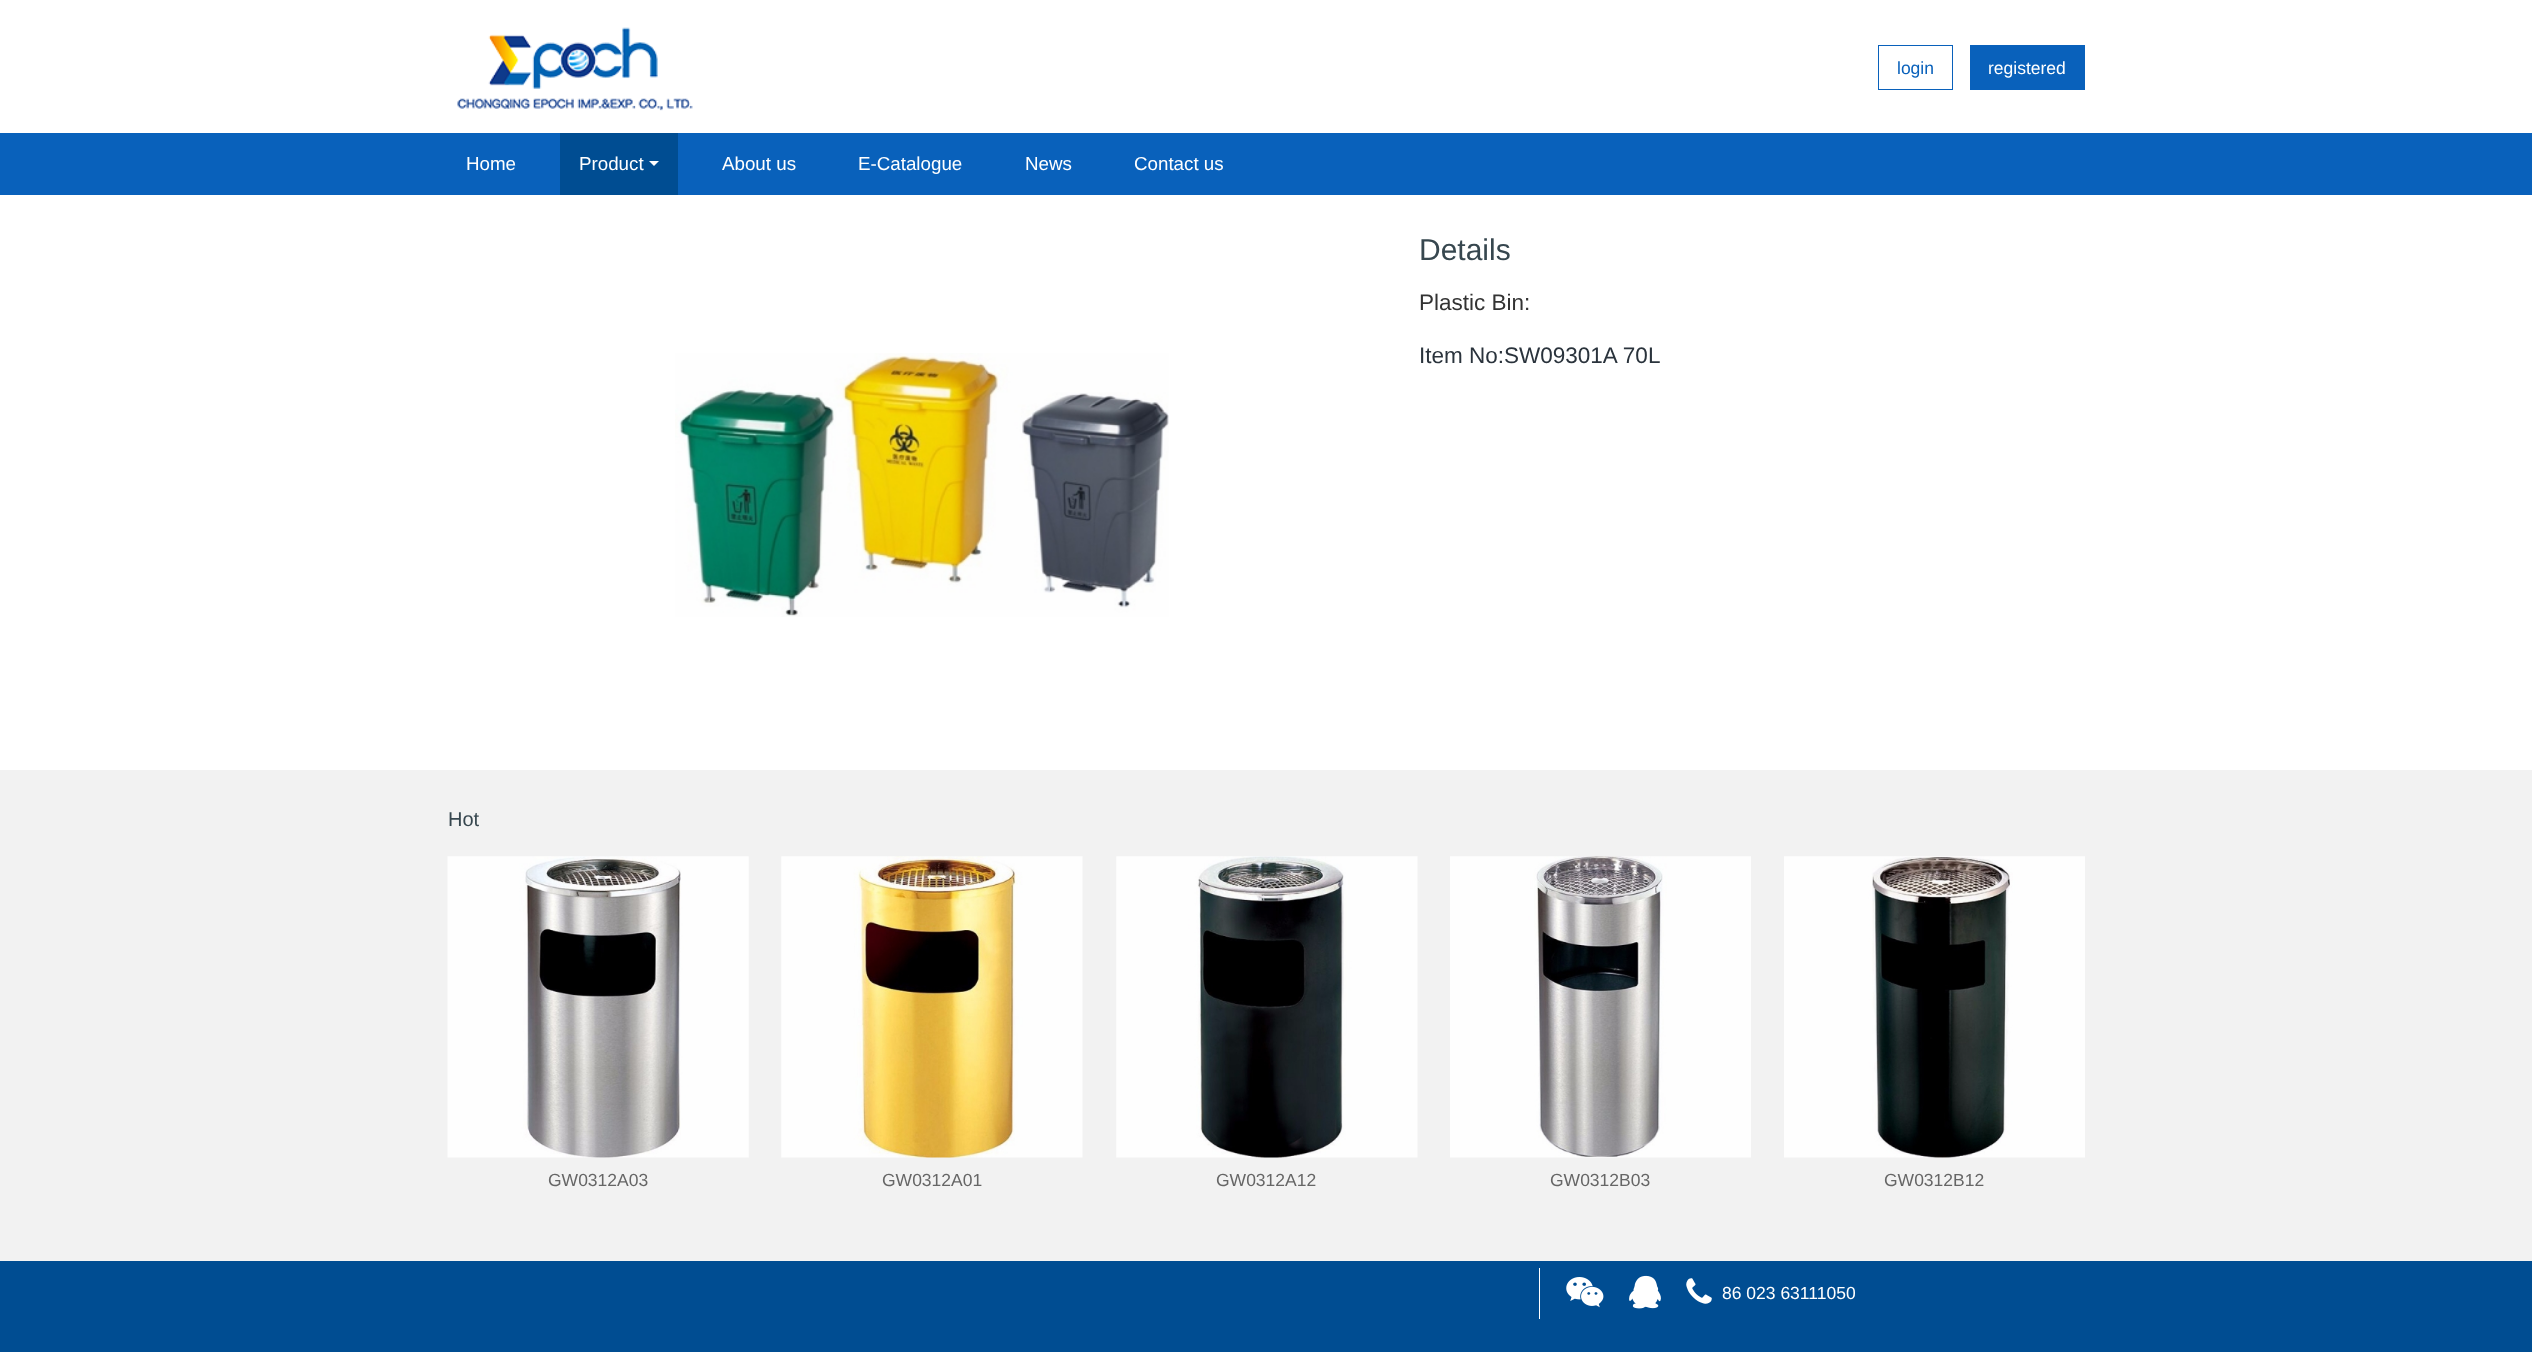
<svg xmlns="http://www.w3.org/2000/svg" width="2532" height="1352">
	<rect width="100%" height="100%" fill="#FFFFFF" />
	<image x="457" y="27" width="236" height="84" href="assets/img1.png" />
	<rect x="1878.5" y="45.5" width="74" height="44" fill="none" stroke="#0961BB" />
	<text x="1897" y="74" font-family="Liberation Sans" font-size="17.5" fill="#0961BB">login</text>
	<rect x="1970" y="45" width="115" height="45" fill="#0961BB" />
	<text x="1988" y="74" font-family="Liberation Sans" font-size="17.5" fill="#FFFFFF">registered</text>
	<rect x="0" y="133" width="2532" height="62" fill="#0961BB" />
	<text x="466" y="170" font-family="Liberation Sans" font-size="18.75" fill="#FFFFFF">Home</text>
	<rect x="560" y="133" width="118" height="62" fill="#004D92" />
	<text x="579" y="170" font-family="Liberation Sans" font-size="18.75" fill="#FFFFFF">Product</text>
	<path d="M649 161H659L654 166Z" fill="#FFFFFF" />
	<g font-family="Liberation Sans" font-size="18.75" fill="#FFFFFF">
		<text x="722" y="170">About us</text>
		<text x="858" y="170">E-Catalogue</text>
		<text x="1025" y="170">News</text>
		<text x="1134" y="170">Contact us</text>
	</g>
	<text x="1419" y="260" font-family="Liberation Sans" font-size="30" fill="#37474F">Details</text>
	<text x="1419" y="310" font-family="Liberation Sans" font-size="22.5" fill="#333333">Plastic Bin:</text>
	<text x="1419" y="363" font-family="Liberation Sans" font-size="22.5" fill="#2A333C">Item No:SW09301A 70L</text>
	<image x="675" y="353" width="494" height="264" href="assets/img2.png" />
	<rect x="0" y="770" width="2532" height="491" fill="#F2F2F2" />
	<text x="448" y="826" font-family="Liberation Sans" font-size="20" fill="#37474F">Hot</text>
	<image x="447" y="856" width="302" height="302" href="assets/img3.png" />
	<text x="548" y="1186" font-family="Liberation Sans" font-size="17.5" fill="#666666">GW0312A03</text>
	<image x="781" y="856" width="302" height="302" href="assets/img4.png" />
	<text x="882" y="1186" font-family="Liberation Sans" font-size="17.5" fill="#666666">GW0312A01</text>
	<image x="1116" y="856" width="302" height="302" href="assets/img5.png" />
	<text x="1216" y="1186" font-family="Liberation Sans" font-size="17.5" fill="#666666">GW0312A12</text>
	<image x="1450" y="856" width="301" height="302" href="assets/img6.png" />
	<text x="1550" y="1186" font-family="Liberation Sans" font-size="17.5" fill="#666666">GW0312B03</text>
	<image x="1784" y="856" width="301" height="302" href="assets/img7.png" />
	<text x="1884" y="1186" font-family="Liberation Sans" font-size="17.5" fill="#666666">GW0312B12</text>
	<rect x="0" y="1261" width="2532" height="91" fill="#004D92" />
	<rect x="1539" y="1268" width="1" height="51" fill="#FFFFFF" />
	<image x="1566" y="1277" width="38" height="31" href="assets/img8.png" />
	<image x="1629" y="1275" width="32" height="34" href="assets/img9.png" />
	<image x="1686" y="1278" width="26" height="26" href="assets/img10.png" />
	<text x="1722" y="1299" font-family="Liberation Sans" font-size="17.5" fill="#FFFFFF">86 023 63111050</text>
</svg>
